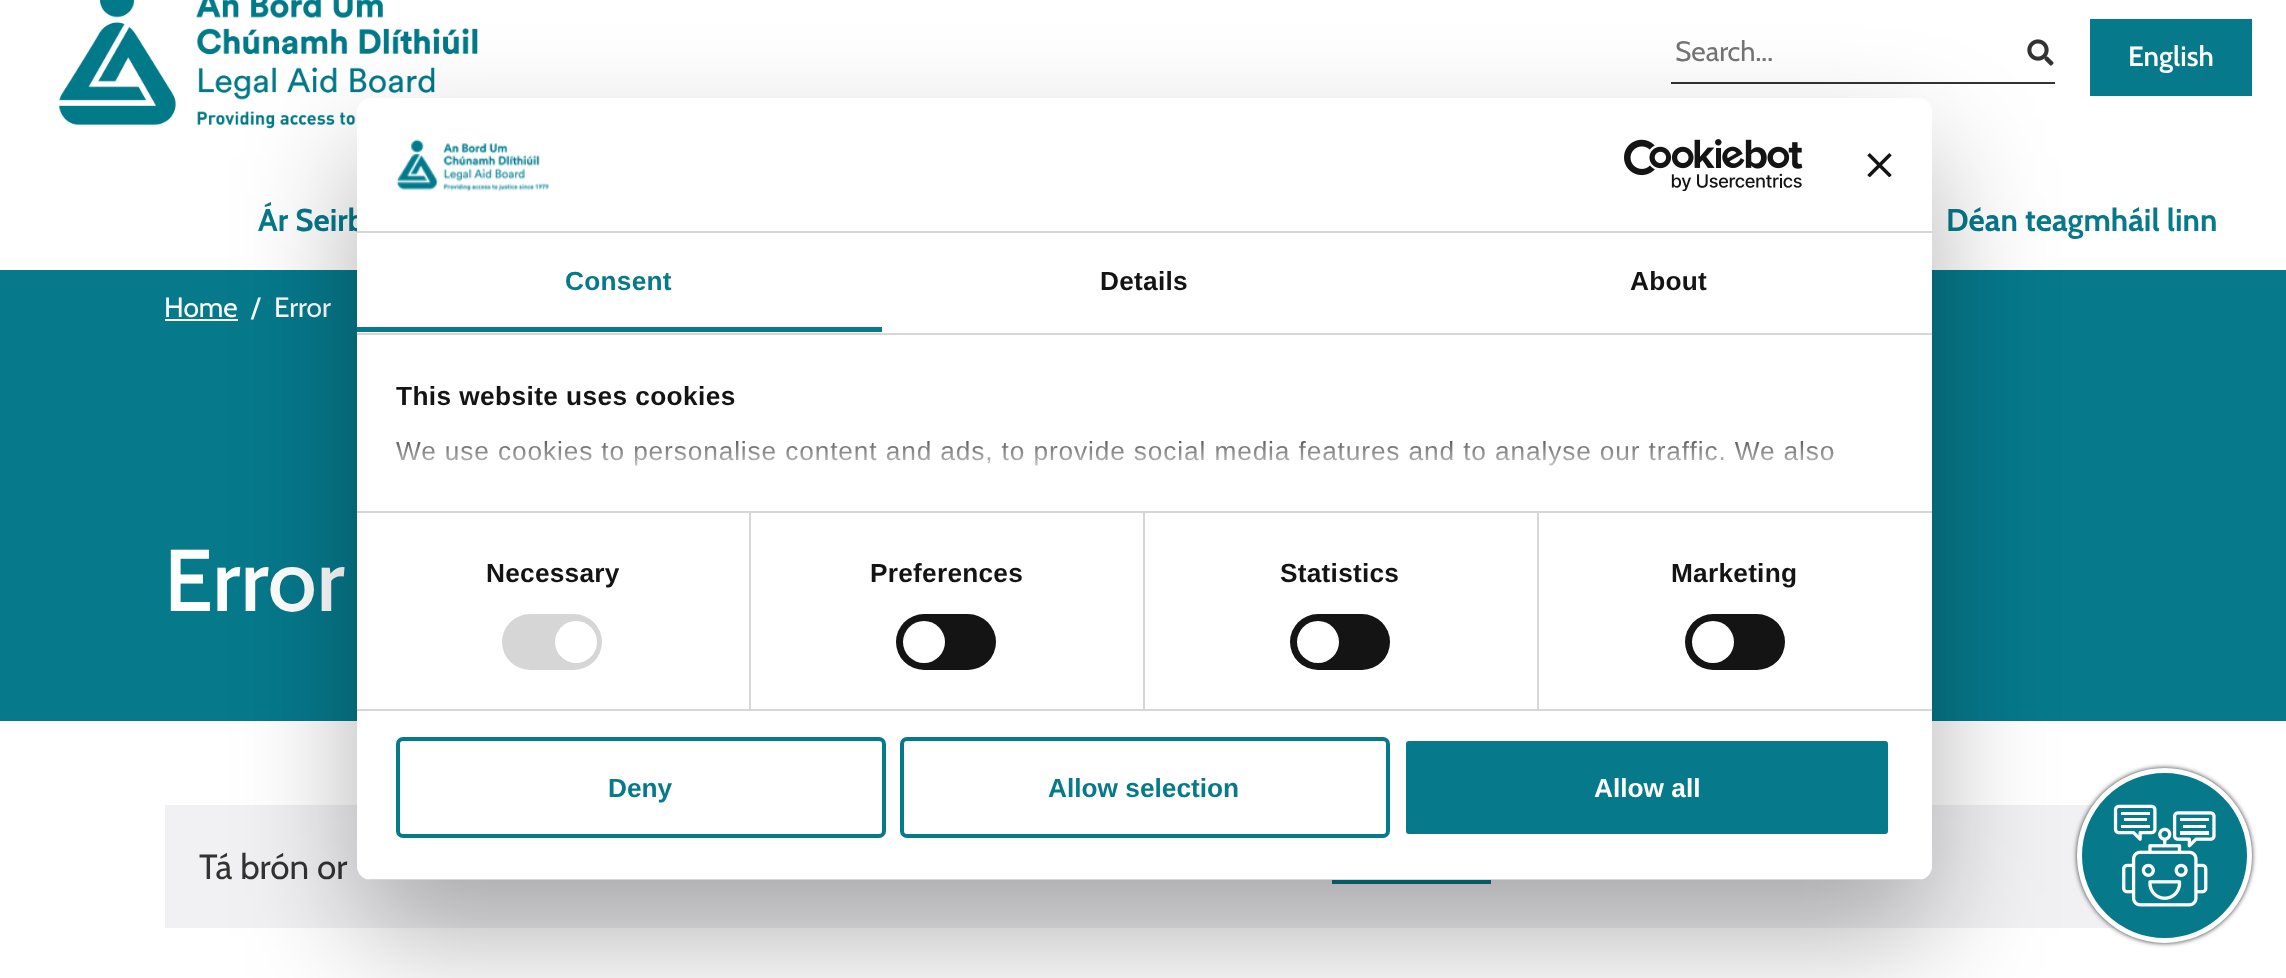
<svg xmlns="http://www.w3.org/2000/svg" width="2286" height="978">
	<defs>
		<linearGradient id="g1" gradientUnits="userSpaceOnUse" x1="1126" y1="512" x2="1126" y2="424"><stop offset="0" stop-color="#FFFFFF" /><stop offset="0.5" stop-color="#FFFFFF" stop-opacity="0.8" /><stop offset="1" stop-color="#FFFFFF" stop-opacity="0" /></linearGradient>
		<clipPath id="clip1"><rect x="357" y="98" width="1575" height="782" rx="14" /></clipPath>
	</defs>
	<rect width="100%" height="100%" fill="#FFFFFF" />
	<image x="58" y="0" width="420" height="129" href="assets/img1.png" />
	<rect x="1671" y="82" width="384" height="2" fill="#333333" />
	<text x="1675" y="61" font-family="Cabin" font-size="28" fill="#757575">Search...</text>
	<image x="2027" y="39" width="27" height="27" href="assets/img2.png" />
	<rect x="2090" y="19" width="162" height="77" fill="#06798B" />
	<text x="2128" y="66" font-family="Cabin" font-size="28" font-weight="600" fill="#FFFFFF">English</text>
	<g font-family="Cabin" font-size="31.5" font-weight="700" fill="#06798B">
		<text x="258" y="231">Ár Seirb</text>
		<text x="1946" y="231">Déan teagmháil linn</text>
	</g>
	<rect x="0" y="270" width="2286" height="451" fill="#06798B" />
	<text x="164" y="317" font-family="Cabin" font-size="28" fill="#FFFFFF">Home</text>
	<rect x="165" y="319" width="73" height="2" fill="#FFFFFF" />
	<g font-family="Cabin" font-size="28" fill="#FFFFFF">
		<text x="251" y="317">/</text>
		<text x="274" y="317">Error</text>
	</g>
	<text x="164" y="611" font-family="Cabin" font-size="87.5" font-weight="500" fill="#FFFFFF">Error</text>
	<rect x="165" y="805" width="1951" height="123" fill="#F1F1F4" />
	<text x="199" y="879" font-family="Cabin" font-size="35" fill="#333333">Tá brón or</text>
	<rect x="1332" y="880" width="159" height="4" fill="#06798B" />
	<rect x="2077" y="768" width="175" height="175" rx="87.5" fill="#333333" filter="blur(2.5px)" />
	<circle cx="2164.5" cy="855.5" r="85" fill="#06798B" stroke="#FFFFFF" stroke-width="5" />
	<rect x="357" y="154" width="1575" height="782" rx="14" fill="#000000" fill-opacity="0.3" filter="blur(59.5px)" />
	<rect x="357" y="98" width="1575" height="782" rx="14" fill="#FFFFFF" />
	<rect x="357" y="231" width="1575" height="2" fill="#D6D6D6" />
	<image x="396" y="139" width="153" height="53" href="assets/img3.png" />
	<image x="1624" y="139" width="179" height="52" href="assets/img4.png" />
	<image x="1867" y="153" width="25" height="24" href="assets/img5.png" />
	<rect x="357" y="333" width="1575" height="2" fill="#D6D6D6" />
	<rect x="357" y="327" width="525" height="5" fill="#06798B" />
	<text x="565" y="290" font-family="Liberation Sans" font-size="26.25" font-weight="700" letter-spacing="0.25" fill="#06798B">Consent</text>
	<g font-family="Liberation Sans" font-size="26.25" font-weight="700" letter-spacing="0.25" fill="#141414">
		<text x="1100" y="290">Details</text>
		<text x="1630" y="290">About</text>
	</g>
	<rect x="357" y="511" width="1575" height="2" fill="#D6D6D6" />
	<text x="396" y="405" font-family="Liberation Sans" font-size="26.25" font-weight="700" letter-spacing="0.4" fill="#141414">This website uses cookies</text>
	<text x="396" y="460" font-family="Liberation Sans" font-size="26.25" letter-spacing="0.88" fill="#141414">We use cookies to personalise content and ads, to provide social media features and to analyse our traffic. We also</text>
	<rect x="395" y="441" width="1438" height="25" fill="url(#g1)" />
	<rect x="357" y="709" width="1575" height="2" fill="#D6D6D6" />
	<rect x="749" y="513" width="2" height="196" fill="#D6D6D6" />
	<text x="486" y="582" font-family="Liberation Sans" font-size="26.25" font-weight="700" letter-spacing="0.25" fill="#141414">Necessary</text>
	<rect x="502" y="614" width="100" height="56" rx="28" fill="#D6D6D6" />
	<circle cx="576" cy="642" r="21" fill="#FFFFFF" />
	<rect x="1143" y="513" width="2" height="196" fill="#D6D6D6" />
	<text x="870" y="582" font-family="Liberation Sans" font-size="26.25" font-weight="700" letter-spacing="0.25" fill="#141414">Preferences</text>
	<rect x="896" y="614" width="100" height="56" rx="28" fill="#141414" />
	<circle cx="924" cy="642" r="21" fill="#FFFFFF" />
	<rect x="1537" y="513" width="2" height="196" fill="#D6D6D6" />
	<text x="1280" y="582" font-family="Liberation Sans" font-size="26.25" font-weight="700" letter-spacing="0.25" fill="#141414">Statistics</text>
	<rect x="1290" y="614" width="100" height="56" rx="28" fill="#141414" />
	<circle cx="1318" cy="642" r="21" fill="#FFFFFF" />
	<text x="1671" y="582" font-family="Liberation Sans" font-size="26.25" font-weight="700" letter-spacing="0.25" fill="#141414">Marketing</text>
	<rect x="1685" y="614" width="100" height="56" rx="28" fill="#141414" />
	<circle cx="1713" cy="642" r="21" fill="#FFFFFF" />
	<g clip-path="url(#clip1)">
		<rect x="366" y="879" width="1557" height="1" fill="#D6D6D6" />
	</g>
	<rect x="398" y="739" width="486" height="97" rx="5" fill="none" stroke="#06798B" stroke-width="4" />
	<text x="608" y="797" font-family="Liberation Sans" font-size="26.25" font-weight="700" fill="#06798B">Deny</text>
	<rect x="902" y="739" width="486" height="97" rx="5" fill="none" stroke="#06798B" stroke-width="4" />
	<text x="1048" y="797" font-family="Liberation Sans" font-size="26.25" font-weight="700" fill="#06798B">Allow selection</text>
	<rect x="1404" y="739" width="486" height="97" rx="5" fill="#06798B" stroke="#FFFFFF" stroke-width="4" />
	<text x="1594" y="797" font-family="Liberation Sans" font-size="26.25" font-weight="700" fill="#FFFFFF">Allow all</text>
	<image x="2113" y="804" width="103" height="103" href="assets/img6.png" />
</svg>
